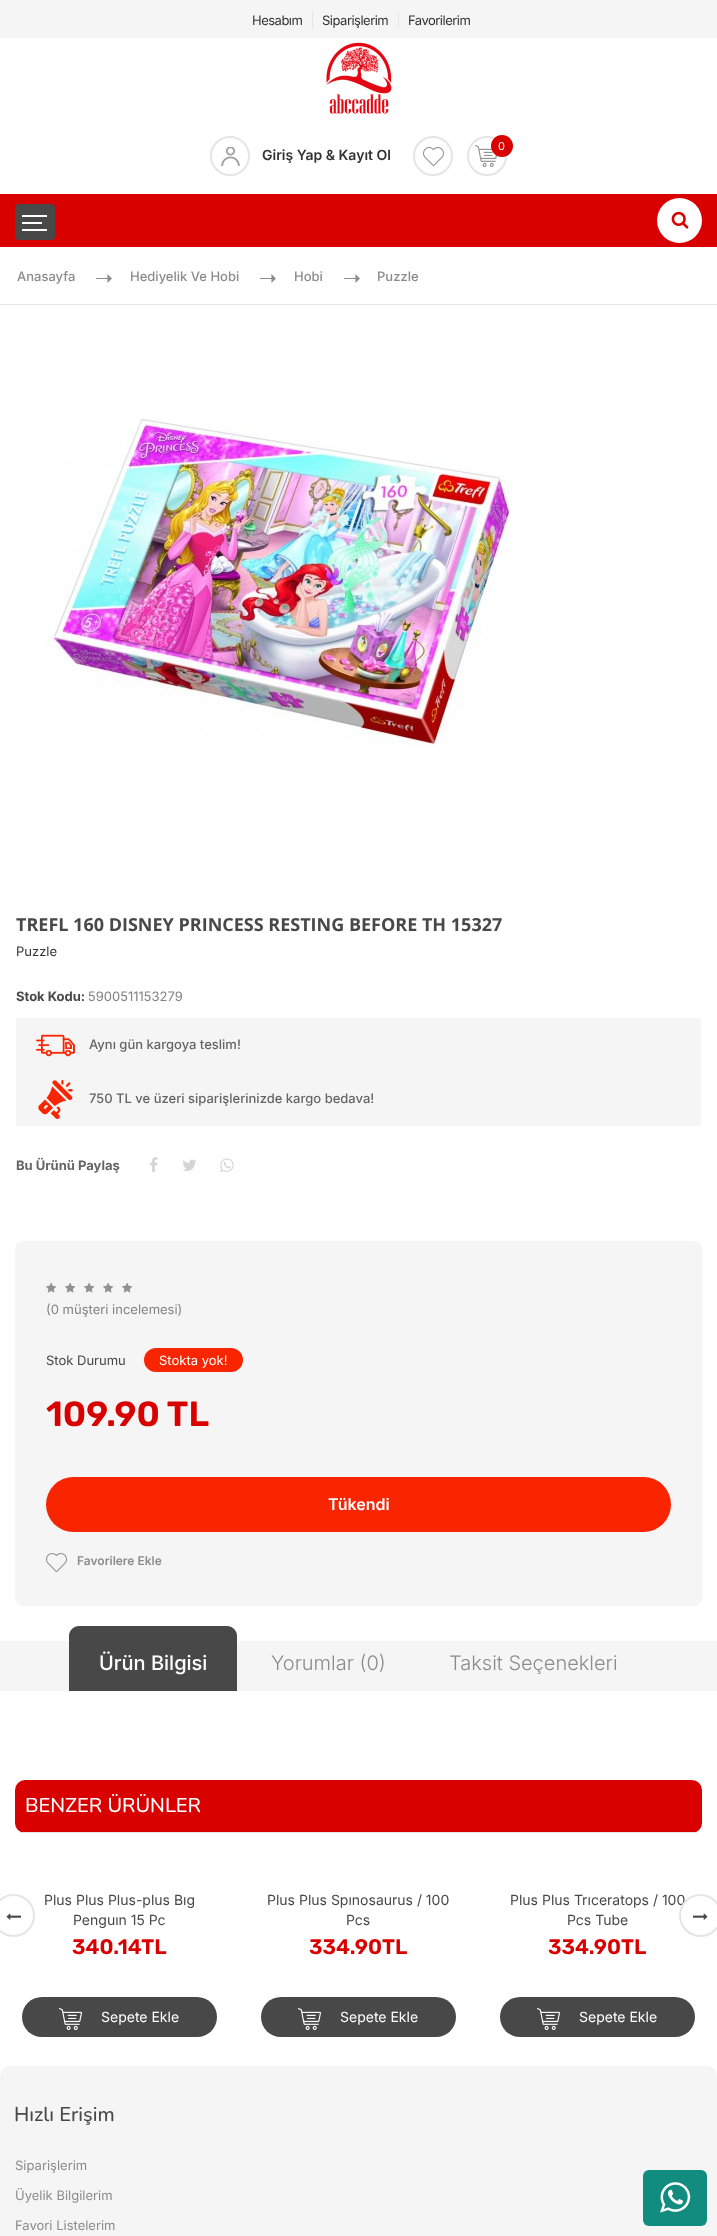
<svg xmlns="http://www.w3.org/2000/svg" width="717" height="2236">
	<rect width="100%" height="100%" fill="#FFFFFF" />
	<rect x="0" y="0" width="717" height="38" fill="#F5F5F5" />
	<g font-family="Inter" font-size="13" letter-spacing="-0.5" fill="#333333">
		<text x="252" y="25">Hesabım</text>
		<text x="322" y="25">Siparişlerim</text>
	</g>
	<rect x="312" y="12" width="1" height="16" fill="#E5E5E5" />
	<text x="408" y="25" font-family="Inter" font-size="13" letter-spacing="-0.5" fill="#333333">Favorilerim</text>
	<rect x="398" y="12" width="1" height="16" fill="#E5E5E5" />
	<image x="326" y="42" width="66" height="72" href="assets/img1.png" />
	<circle cx="433" cy="156" r="19" fill="none" stroke="#E5E5E5" stroke-width="2" />
	<image x="423" y="147" width="21" height="19" href="assets/img2.png" />
	<circle cx="487" cy="156" r="19" fill="none" stroke="#E5E5E5" stroke-width="2" />
	<image x="475" y="145" width="22" height="22" href="assets/img3.png" />
	<circle cx="502" cy="146" r="11" fill="#D90000" />
	<text x="498" y="150" font-family="Inter" font-size="11" fill="#F4F4F4">0</text>
	<circle cx="230" cy="156" r="19" fill="none" stroke="#E5E5E5" stroke-width="2" />
	<image x="221" y="147" width="19" height="19" href="assets/img4.png" />
	<text x="262" y="160" font-family="Inter" font-size="14" font-weight="600" fill="#333333">Giriş Yap &amp; Kayıt Ol</text>
	<rect x="0" y="194" width="717" height="53" fill="#D90000" />
	<rect x="16" y="205" width="38" height="34" rx="3" fill="#484848" stroke="#484848" stroke-width="2" />
	<rect x="22" y="215" width="25" height="2" fill="#FFFFFF" />
	<rect x="22" y="222" width="20" height="2" fill="#FFFFFF" />
	<rect x="22" y="229" width="25" height="2" fill="#FFFFFF" />
	<circle cx="679.5" cy="220.5" r="22.5" fill="#FFFFFF" />
	<image x="671" y="211" width="18" height="18" href="assets/img5.png" />
	<rect x="0" y="304" width="717" height="1" fill="#E5E5E5" />
	<text x="17" y="281" font-family="Inter" font-size="13" font-weight="500" fill="#8C8C8C">Anasayfa</text>
	<image x="96" y="274" width="16" height="9" href="assets/img6.png" />
	<text x="130" y="281" font-family="Inter" font-size="13" font-weight="500" fill="#8C8C8C">Hediyelik Ve Hobi</text>
	<image x="260" y="274" width="16" height="9" href="assets/img6.png" />
	<text x="294" y="281" font-family="Inter" font-size="13" font-weight="500" fill="#8C8C8C">Hobi</text>
	<image x="344" y="274" width="16" height="9" href="assets/img6.png" />
	<text x="377" y="281" font-family="Inter" font-size="13" font-weight="500" fill="#8C8C8C">Puzzle</text>
	<image x="47" y="411" width="464" height="336" href="assets/img7.png" />
	<text x="16" y="931" font-family="Open Sans" font-size="18" font-weight="700" fill="#484848">TREFL 160 DISNEY PRINCESS RESTING BEFORE TH 15327</text>
	<text x="16" y="956" font-family="Inter" font-size="13" fill="#333333">Puzzle</text>
	<text x="16" y="1001" font-family="Inter" font-size="13" font-weight="700" fill="#484848">Stok Kodu:</text>
	<text x="88" y="1001" font-family="Inter" font-size="13" fill="#838383">5900511153279</text>
	<rect x="16" y="1018" width="685" height="108" fill="#F5F5F5" />
	<image x="36" y="1034" width="39" height="23" href="assets/img8.png" />
	<text x="89" y="1049" font-family="Inter" font-size="13" font-weight="500" fill="#656565">Aynı gün kargoya teslim!</text>
	<image x="38" y="1080" width="35" height="39" href="assets/img9.png" />
	<text x="89" y="1103" font-family="Inter" font-size="13" font-weight="500" fill="#656565">750 TL ve üzeri siparişlerinizde kargo bedava!</text>
	<text x="16" y="1170" font-family="Inter" font-size="13" font-weight="700" fill="#656565">Bu Ürünü Paylaş</text>
	<image x="149" y="1157" width="9" height="16" href="assets/img10.png" />
	<image x="183" y="1159" width="13" height="12" href="assets/img11.png" />
	<image x="220" y="1158" width="14" height="14" href="assets/img12.png" />
	<rect x="15" y="1241" width="687" height="365" rx="8" fill="#F5F5F5" />
	<image x="46" y="1282" width="11" height="11" href="assets/img13.png" />
	<image x="65" y="1282" width="11" height="11" href="assets/img13.png" />
	<image x="84" y="1282" width="11" height="11" href="assets/img13.png" />
	<image x="103" y="1282" width="11" height="11" href="assets/img13.png" />
	<image x="122" y="1282" width="11" height="11" href="assets/img13.png" />
	<text x="46" y="1314" font-family="Inter" font-size="13" fill="#838383">(0 müşteri incelemesi)</text>
	<text x="46" y="1365" font-family="Inter" font-size="13" fill="#484848">Stok Durumu</text>
	<rect x="144" y="1348" width="99" height="24" rx="12" fill="#F92400" />
	<text x="159" y="1365" font-family="Inter" font-size="13" fill="#FFFFFF">Stokta yok!</text>
	<text x="46" y="1426" font-family="Rubik" font-size="35" font-weight="600" fill="#D90000">109.90 TL</text>
	<rect x="46" y="1477" width="625" height="55" rx="27.5" fill="#F92400" />
	<text x="328" y="1510" font-family="Inter" font-size="16" font-weight="600" fill="#FFFFFF">Tükendi</text>
	<image x="46" y="1553" width="21" height="19" href="assets/img14.png" />
	<text x="77" y="1565" font-family="Inter" font-size="12" font-weight="600" fill="#8C8C8C">Favorilere Ekle</text>
	<rect x="0" y="1641" width="717" height="50" fill="#F5F5F5" />
	<path d="M79 1626H227C232.5 1626 237 1630.5 237 1636V1691H69V1636C69 1630.5 73.5 1626 79 1626Z" fill="#484848" />
	<text x="99" y="1670" font-family="Inter" font-size="20" font-weight="500" fill="#FFFFFF">Ürün Bilgisi</text>
	<g font-family="Inter" font-size="20" font-weight="300" fill="#8C8C8C">
		<text x="271" y="1670">Yorumlar (0)</text>
		<text x="449" y="1670">Taksit Seçenekleri</text>
	</g>
	<rect x="15" y="1780" width="687" height="53" rx="10" fill="#D90000" />
	<rect x="20" y="1832" width="677" height="1" fill="#E5E5E5" />
	<text x="25" y="1812" font-family="Nunito" font-size="20" font-weight="500" fill="#FFFFFF">BENZER ÜRÜNLER</text>
	<circle cx="13.5" cy="1915.5" r="20.5" fill="none" stroke="#E5E5E5" stroke-width="2" />
	<image x="6" y="1913" width="15" height="7" href="assets/img15.png" />
	<text x="510" y="1905" font-family="Inter" font-size="14" fill="#484848">Plus Plus Trıceratops / 100</text>
	<circle cx="700.5" cy="1915.5" r="20.5" fill="#FFFFFF" stroke="#E5E5E5" stroke-width="2" />
	<image x="693" y="1913" width="15" height="7" href="assets/img16.png" />
	<g font-family="Inter" font-size="14" fill="#484848">
		<text x="44" y="1905">Plus Plus Plus-plus Bıg</text>
		<text x="73" y="1925">Penguın 15 Pc</text>
	</g>
	<text x="72" y="1954" font-family="Rubik" font-size="21" font-weight="600" fill="#D90000">340.14TL</text>
	<rect x="22" y="1997" width="195" height="40" rx="20" fill="#484848" />
	<image x="59" y="2008" width="23" height="22" href="assets/img17.png" />
	<text x="101" y="2022" font-family="Inter" font-size="14" fill="#FFFFFF">Sepete Ekle</text>
	<g font-family="Inter" font-size="14" fill="#484848">
		<text x="267" y="1905">Plus Plus Spınosaurus / 100</text>
		<text x="346" y="1925">Pcs</text>
	</g>
	<text x="309" y="1954" font-family="Rubik" font-size="21" font-weight="600" fill="#D90000">334.90TL</text>
	<rect x="261" y="1997" width="195" height="40" rx="20" fill="#484848" />
	<image x="298" y="2008" width="23" height="22" href="assets/img17.png" />
	<text x="340" y="2022" font-family="Inter" font-size="14" fill="#FFFFFF">Sepete Ekle</text>
	<text x="567" y="1925" font-family="Inter" font-size="14" fill="#484848">Pcs Tube</text>
	<text x="548" y="1954" font-family="Rubik" font-size="21" font-weight="600" fill="#D90000">334.90TL</text>
	<rect x="500" y="1997" width="195" height="40" rx="20" fill="#484848" />
	<image x="537" y="2008" width="23" height="22" href="assets/img17.png" />
	<text x="579" y="2022" font-family="Inter" font-size="14" fill="#FFFFFF">Sepete Ekle</text>
	<rect x="0" y="2066" width="717" height="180" rx="10" fill="#F5F5F5" />
	<text x="14" y="2121" font-family="Nunito" font-size="20" font-weight="500" fill="#484848">Hızlı Erişim</text>
	<g font-family="Inter" font-size="13" fill="#8C8C8C">
		<text x="15" y="2170">Siparişlerim</text>
		<text x="15" y="2200">Üyelik Bilgilerim</text>
		<text x="15" y="2230">Favori Listelerim</text>
	</g>
	<rect x="643" y="2170" width="64" height="56" rx="6" fill="#128C7E" />
	<image x="660" y="2182" width="31" height="31" href="assets/img18.png" />
</svg>
